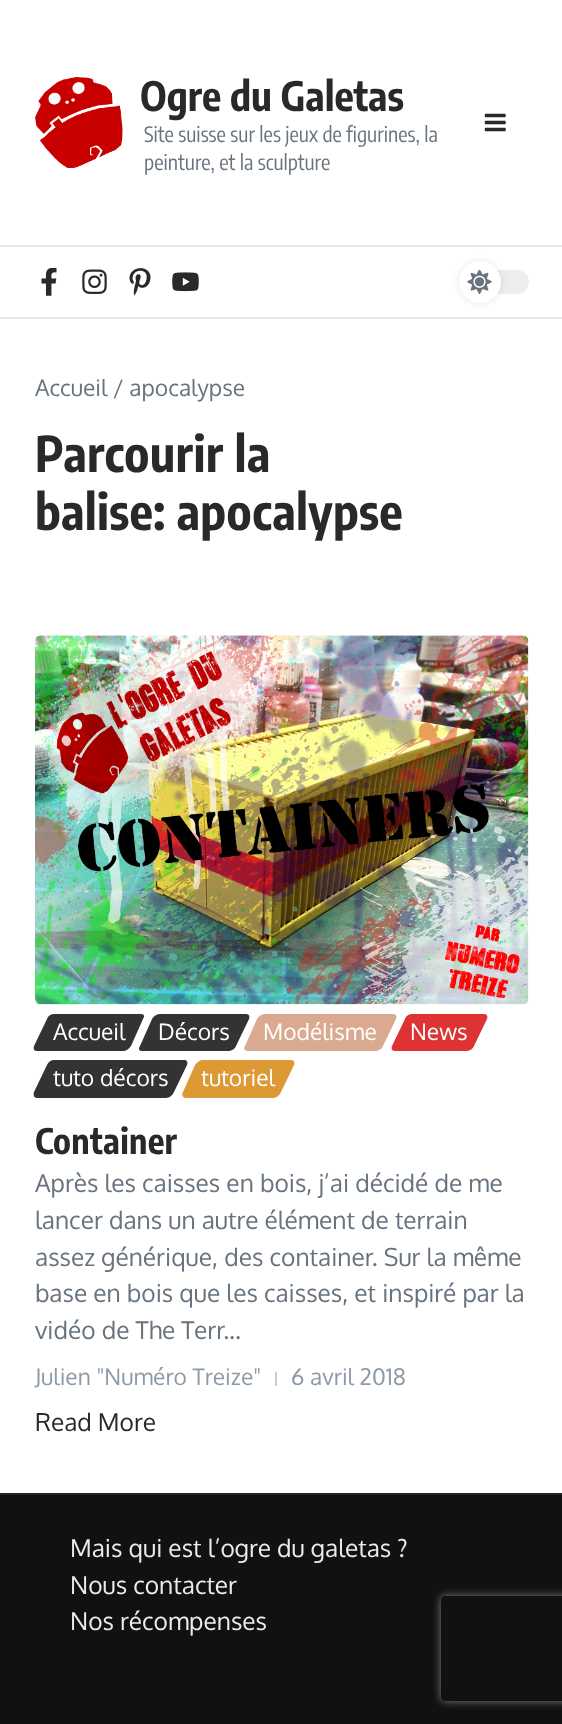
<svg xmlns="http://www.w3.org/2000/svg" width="562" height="1724">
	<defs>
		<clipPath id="clip1"><path d="M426 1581H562V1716H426ZM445 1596H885C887 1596 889 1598 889 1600V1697C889 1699 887 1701 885 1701H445C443 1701 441 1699 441 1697V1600C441 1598 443 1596 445 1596Z" clip-rule="evenodd" /></clipPath>
	</defs>
	<rect width="100%" height="100%" fill="#FFFFFF" />
	<rect x="0" y="245" width="562" height="2" fill="#E8E8E8" />
	<image x="35" y="77" width="88" height="91" href="assets/img1.png" />
	<text x="140" y="111" font-family="Encode Sans Condensed" font-size="40.25" font-weight="700" fill="#292929">Ogre du Galetas</text>
	<g font-family="Encode Sans Condensed" font-size="21" fill="#67737E">
		<text x="144" y="142">Site suisse sur les jeux de figurines, la</text>
		<text x="144" y="170">peinture, et la sculpture</text>
	</g>
	<image x="484" y="113" width="22" height="19" href="assets/img2.png" />
	<rect x="0" y="317" width="562" height="2" fill="#E8E8E8" />
	<image x="41" y="268" width="16" height="28" href="assets/img3.png" />
	<image x="82" y="269" width="25" height="25" href="assets/img4.png" />
	<image x="129" y="268" width="22" height="28" href="assets/img5.png" />
	<image x="172" y="272" width="27" height="20" href="assets/img6.png" />
	<rect x="459" y="270" width="70" height="24" rx="12" fill="#EDEDED" />
	<rect x="459" y="261" width="42" height="42" rx="21" fill="#000000" fill-opacity="0.1" filter="blur(3.5px)" />
	<circle cx="480" cy="282" r="21" fill="#FFFFFF" />
	<image x="467" y="270" width="25" height="24" href="assets/img7.png" />
	<text x="35" y="396" font-family="Oxygen" font-size="22.75" fill="#67737E">Accueil / apocalypse</text>
	<g font-family="Encode Sans Condensed" font-size="49" font-weight="700" letter-spacing="0.3" fill="#292929">
		<text x="35" y="472">Parcourir la</text>
		<text x="35" y="530">balise: apocalypse</text>
	</g>
	<image x="35" y="635" width="494" height="370" href="assets/img8.png" />
	<path d="M54 1014H141C144 1014 145 1016 143 1019L131 1046C129 1049 126 1051 123 1051H37C34 1051 33 1049 34 1046L47 1019C48 1016 51 1014 54 1014Z" fill="#333333" />
	<text x="53" y="1040" font-family="Oxygen" font-size="22.75" fill="#FFFFFF">Accueil</text>
	<path d="M160 1014H246C249 1014 250 1016 249 1019L236 1046C235 1049 231 1051 228 1051H142C139 1051 138 1049 140 1046L152 1019C154 1016 157 1014 160 1014Z" fill="#333333" />
	<text x="158" y="1040" font-family="Oxygen" font-size="22.75" fill="#FFFFFF">Décors</text>
	<path d="M265 1014H393C396 1014 397 1016 396 1019L383 1046C382 1049 378 1051 375 1051H248C245 1051 243 1049 245 1046L257 1019C259 1016 262 1014 265 1014Z" fill="#D9AA8F" />
	<text x="263" y="1040" font-family="Oxygen" font-size="22.75" fill="#FFFFFF">Modélisme</text>
	<path d="M412 1014H484C487 1014 488 1016 487 1019L474 1046C473 1049 469 1051 466 1051H395C392 1051 391 1049 392 1046L405 1019C406 1016 409 1014 412 1014Z" fill="#DD3333" />
	<text x="410" y="1040" font-family="Oxygen" font-size="22.75" fill="#FFFFFF">News</text>
	<path d="M54 1060H184C187 1060 188 1062 187 1065L174 1092C173 1095 169 1098 166 1098H37C34 1098 33 1095 34 1092L47 1065C48 1062 51 1060 54 1060Z" fill="#333333" />
	<text x="53" y="1086" font-family="Oxygen" font-size="22.75" fill="#FFFFFF">tuto décors</text>
	<path d="M203 1060H291C294 1060 295 1062 294 1065L281 1092C280 1095 276 1098 273 1098H186C183 1098 181 1095 183 1092L195 1065C197 1062 200 1060 203 1060Z" fill="#DD9933" />
	<text x="201" y="1086" font-family="Oxygen" font-size="22.75" fill="#FFFFFF">tutoriel</text>
	<text x="35" y="1154" font-family="Encode Sans Condensed" font-size="35" font-weight="700" letter-spacing="0.3" fill="#292929">Container</text>
	<g font-family="Oxygen" font-size="24.5" fill="#67737E">
		<text x="35" y="1192">Après les caisses en bois, j’ai décidé de me</text>
		<text x="35" y="1229">lancer dans un autre élément de terrain</text>
		<text x="35" y="1266">assez générique, des container. Sur la même</text>
		<text x="35" y="1302">base en bois que les caisses, et inspiré par la</text>
		<text x="35" y="1339">vidéo de The Terr...</text>
	</g>
	<text x="35" y="1385" font-family="Oxygen" font-size="22.75" fill="#8E9BA7">Julien "Numéro Treize"</text>
	<rect x="275" y="1372" width="2" height="14" fill="#C7CDD3" />
	<text x="291" y="1385" font-family="Oxygen" font-size="22.75" fill="#8E9BA7">6 avril 2018</text>
	<text x="35" y="1431" font-family="Oxygen" font-size="24.5" fill="#292929">Read More</text>
	<rect x="0" y="1495" width="562" height="229" fill="#111111" />
	<rect x="0" y="1493" width="562" height="2" fill="#222222" />
	<g font-family="Oxygen" font-size="24.5" fill="#ECECEC">
		<text x="70" y="1557">Mais qui est l’ogre du galetas ?</text>
		<text x="70" y="1594">Nous contacter</text>
		<text x="70" y="1630">Nos récompenses</text>
	</g>
	<g clip-path="url(#clip1)">
		<rect x="441" y="1596" width="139" height="105" rx="4" fill="#808080" filter="blur(4.5px)" />
	</g>
</svg>
